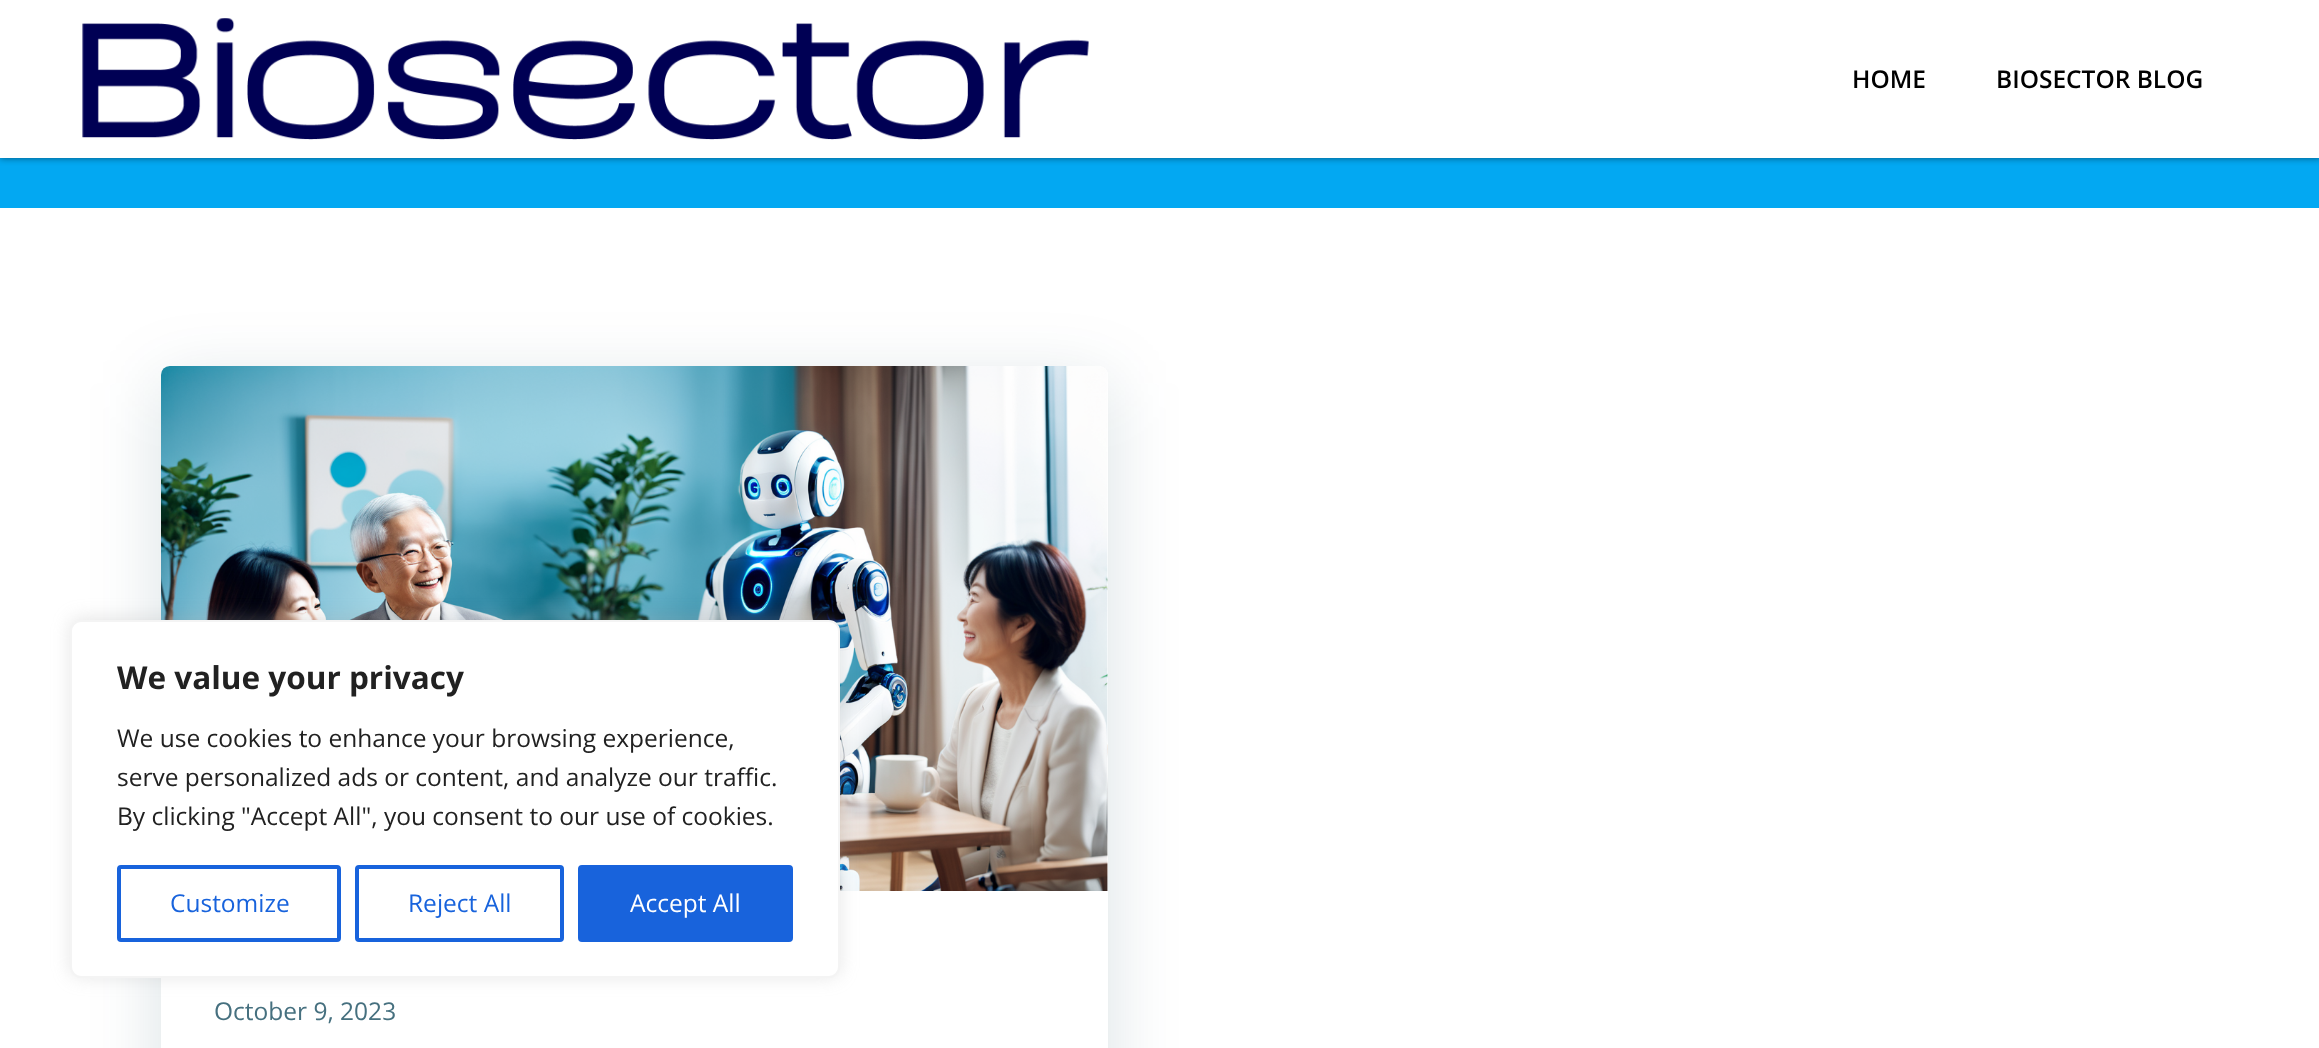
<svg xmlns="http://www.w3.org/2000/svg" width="2319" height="1048">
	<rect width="100%" height="100%" fill="#FFFFFF" />
	<rect x="0" y="158" width="2319" height="50" fill="#03A8F2" />
	<rect x="0" y="0" width="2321" height="158" fill="#000000" fill-opacity="0.5" filter="blur(3.5px)" />
	<rect x="0" y="0" width="2319" height="158" fill="#FFFFFF" />
	<image x="82" y="18" width="1007" height="122" href="assets/img1.png" />
	<g font-family="Open Sans" font-size="24.5" font-weight="600" fill="#000000">
		<text x="1852" y="88">HOME</text>
		<text x="1996" y="88">BIOSECTOR BLOG</text>
	</g>
	<rect x="161" y="383" width="947" height="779" rx="9" fill="#01334A" fill-opacity="0.15" filter="blur(35px)" />
	<rect x="161" y="366" width="947" height="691" rx="9" fill="#FFFFFF" />
	<image x="161" y="366" width="947" height="525" href="assets/img2.png" />
	<text x="214" y="1020" font-family="Open Sans" font-size="24.5" fill="#46707F">October 9, 2023</text>
	<rect x="70" y="618" width="770" height="359" rx="11" fill="#ACABAB" fill-opacity="0.3" filter="blur(9px)" />
	<rect x="71" y="621" width="768" height="356" rx="10" fill="#FFFFFF" stroke="#F4F4F4" stroke-width="2" />
	<text x="117" y="689" font-family="Open Sans" font-size="31.5" font-weight="700" fill="#212121">We value your privacy</text>
	<g font-family="Open Sans" font-size="24.5" fill="#212121">
		<text x="117" y="747">We use cookies to enhance your browsing experience,</text>
		<text x="117" y="786">serve personalized ads or content, and analyze our traffic.</text>
		<text x="117" y="825">By clicking "Accept All", you consent to our use of cookies.</text>
	</g>
	<rect x="119" y="867" width="220" height="73" rx="2" fill="none" stroke="#1863DC" stroke-width="4" />
	<text x="170" y="912" font-family="Open Sans" font-size="24.5" fill="#1863DC">Customize</text>
	<rect x="357" y="867" width="205" height="73" rx="2" fill="none" stroke="#1863DC" stroke-width="4" />
	<text x="408" y="912" font-family="Open Sans" font-size="24.5" fill="#1863DC">Reject All</text>
	<rect x="580" y="867" width="211" height="73" rx="2" fill="#1863DC" stroke="#1863DC" stroke-width="4" />
	<text x="630" y="912" font-family="Open Sans" font-size="24.5" fill="#FFFFFF">Accept All</text>
</svg>
